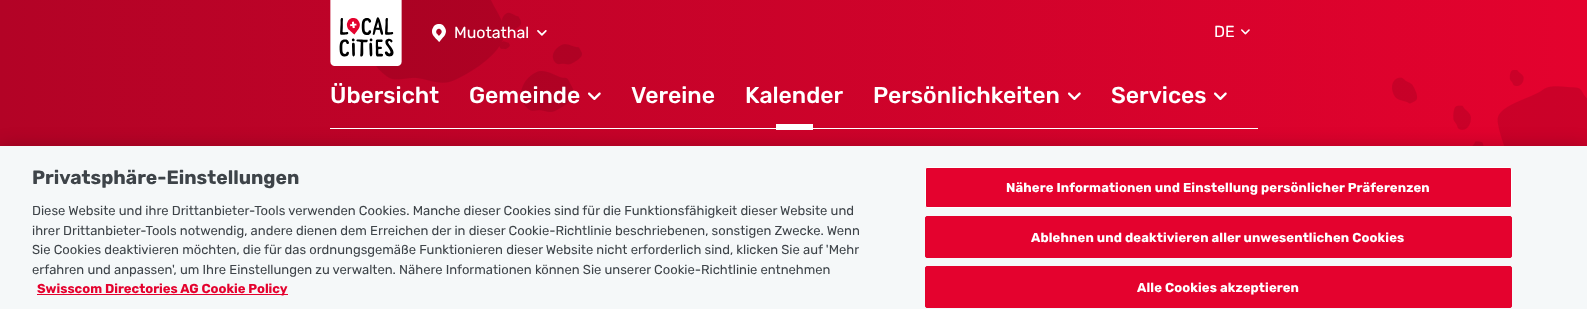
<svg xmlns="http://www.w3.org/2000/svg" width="1587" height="309">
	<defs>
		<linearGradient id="g1" gradientUnits="userSpaceOnUse" x1="0" y1="102" x2="1587" y2="102"><stop offset="0" stop-color="#B30326" /><stop offset="1" stop-color="#E4022E" /></linearGradient>
	</defs>
	<rect width="100%" height="100%" fill="#FFFFFF" />
	<rect x="0" y="0" width="1587" height="146" fill="url(#g1)" />
	<image x="376" y="0" width="206" height="112" href="assets/img1.png" />
	<image x="330" y="0" width="72" height="66" href="assets/img2.png" />
	<image x="432" y="24" width="14" height="18" href="assets/img3.png" />
	<text x="454" y="38" font-family="Rubik" font-size="16" fill="#FFFFFF">Muotathal</text>
	<image x="537" y="30" width="10" height="6" href="assets/img4.png" />
	<text x="1214" y="37" font-family="Rubik" font-size="16" fill="#FFFFFF">DE</text>
	<image x="1241" y="29" width="9" height="6" href="assets/img5.png" />
	<g font-family="Rubik" font-size="23" font-weight="500" fill="#FFFFFF">
		<text x="330" y="103">Übersicht</text>
		<text x="469" y="103">Gemeinde</text>
	</g>
	<image x="588" y="92" width="13" height="8" href="assets/img6.png" />
	<g font-family="Rubik" font-size="23" font-weight="500" fill="#FFFFFF">
		<text x="631" y="103">Vereine</text>
		<text x="745" y="103">Kalender</text>
	</g>
	<rect x="776" y="124" width="37" height="6" fill="#FFFFFF" />
	<text x="873" y="103" font-family="Rubik" font-size="23" font-weight="500" fill="#FFFFFF">Persönlichkeiten</text>
	<image x="1068" y="92" width="13" height="8" href="assets/img7.png" />
	<text x="1111" y="103" font-family="Rubik" font-size="23" font-weight="500" fill="#FFFFFF">Services</text>
	<image x="1214" y="92" width="13" height="8" href="assets/img8.png" />
	<rect x="330" y="128" width="928" height="1" fill="#FFFFFF" />
	<image x="1392" y="70" width="195" height="76" href="assets/img9.png" />
	<rect x="0" y="146" width="1587" height="163" fill="#000000" fill-opacity="0.2" filter="blur(9px)" />
	<rect x="0" y="146" width="1587" height="163" fill="#F5F8F9" />
	<text x="32" y="184" font-family="Rubik" font-size="19.25" font-weight="700" fill="#3E4449">Privatsphäre-Einstellungen</text>
	<g font-family="Rubik" font-size="13" fill="#3E4449">
		<text x="32" y="215">Diese Website und ihre Drittanbieter-Tools verwenden Cookies. Manche dieser Cookies sind für die Funktionsfähigkeit dieser Website und</text>
		<text x="32" y="235">ihrer Drittanbieter-Tools notwendig, andere dienen dem Erreichen der in dieser Cookie-Richtlinie beschriebenen, sonstigen Zwecke. Wenn</text>
		<text x="32" y="254">Sie Cookies deaktivieren möchten, die für das ordnungsgemäße Funktionieren dieser Website nicht erforderlich sind, klicken Sie auf 'Mehr</text>
		<text x="32" y="274">erfahren und anpassen', um Ihre Einstellungen zu verwalten. Nähere Informationen können Sie unserer Cookie-Richtlinie entnehmen</text>
	</g>
	<rect x="37" y="294" width="251" height="1" fill="#E4022E" />
	<text x="37" y="293" font-family="Rubik" font-size="13" font-weight="700" fill="#E4022E">Swisscom Directories AG Cookie Policy</text>
	<rect x="925.5" y="167.5" width="586" height="40" rx="1.5" fill="#E4022E" stroke="#FFFFFF" />
	<text x="1006" y="192" font-family="Rubik" font-size="13" font-weight="700" letter-spacing="0.13" fill="#FFFFFF">Nähere Informationen und Einstellung persönlicher Präferenzen</text>
	<rect x="925.5" y="216.5" width="586" height="41" rx="1.5" fill="#E4022E" stroke="#E4022E" />
	<text x="1031" y="242" font-family="Rubik" font-size="13" font-weight="700" letter-spacing="0.13" fill="#FFFFFF">Ablehnen und deaktivieren aller unwesentlichen Cookies</text>
	<rect x="925.5" y="266.5" width="586" height="41" rx="1.5" fill="#E4022E" stroke="#E4022E" />
	<text x="1137" y="292" font-family="Rubik" font-size="13" font-weight="700" letter-spacing="0.13" fill="#FFFFFF">Alle Cookies akzeptieren</text>
</svg>
